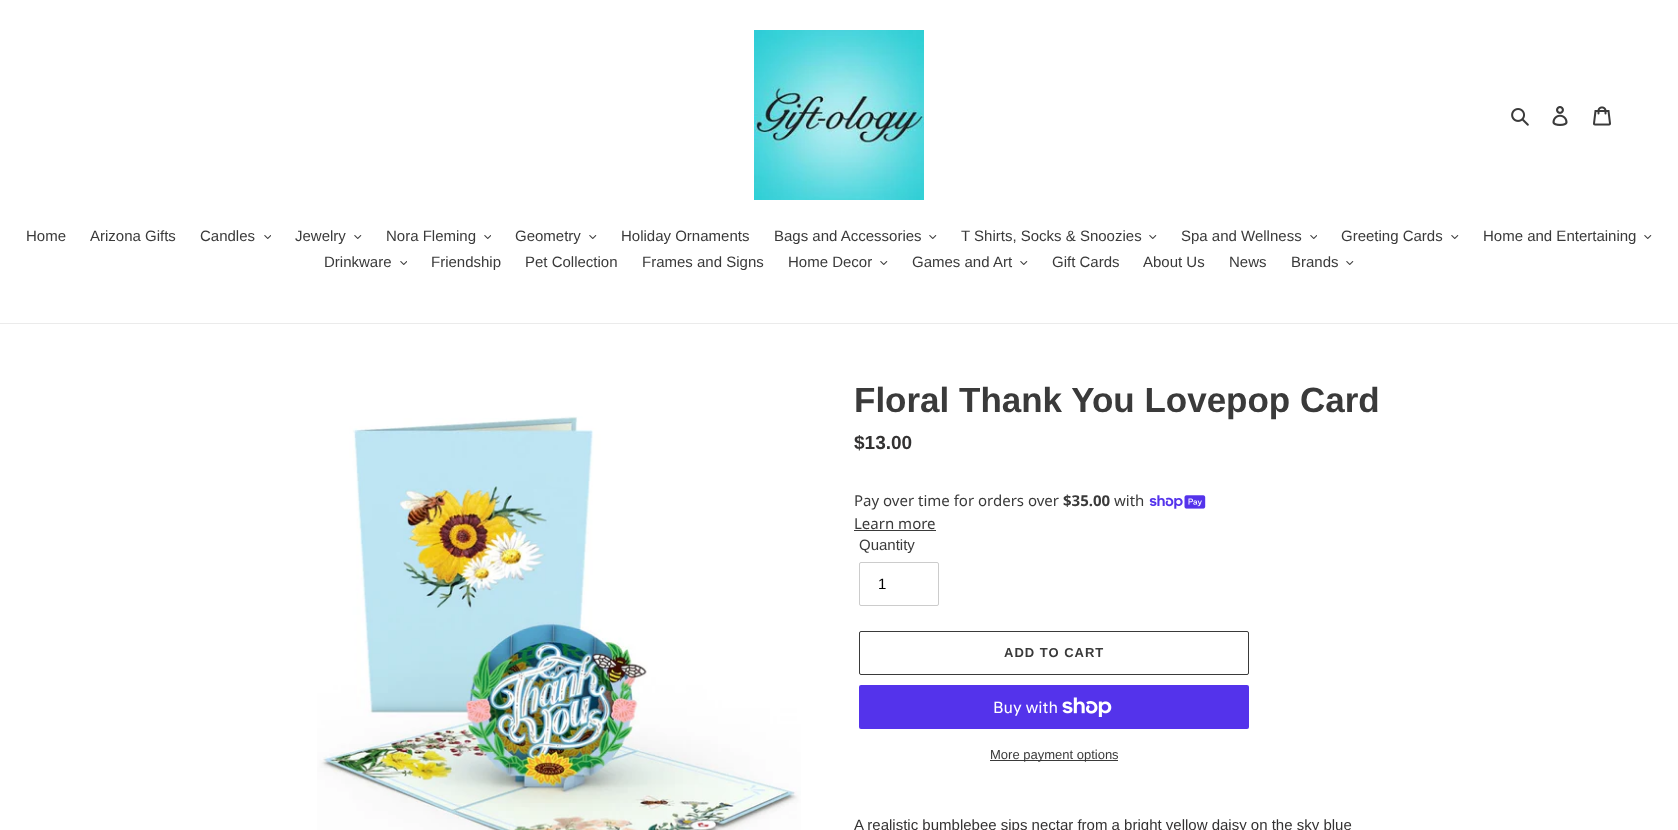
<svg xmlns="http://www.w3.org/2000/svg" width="1678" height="830">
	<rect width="100%" height="100%" fill="#FFFFFF" />
	<image x="754" y="30" width="170" height="170" href="assets/img1.png" />
	<image x="1511" y="108" width="18" height="18" href="assets/img2.png" />
	<image x="1552" y="106" width="16" height="20" href="assets/img3.png" />
	<image x="1593" y="106" width="18" height="20" href="assets/img4.png" />
	<rect x="0" y="323" width="1678" height="1" fill="#EBEBEB" />
	<g font-family="Liberation Sans" font-size="15" fill="#3A3A3A">
		<text x="26" y="241">Home</text>
		<text x="90" y="241">Arizona Gifts</text>
		<text x="200" y="241">Candles</text>
	</g>
	<image x="264" y="235" width="7" height="4" href="assets/img5.png" />
	<text x="295" y="241" font-family="Liberation Sans" font-size="15" fill="#3A3A3A">Jewelry</text>
	<image x="354" y="235" width="8" height="4" href="assets/img6.png" />
	<text x="386" y="241" font-family="Liberation Sans" font-size="15" fill="#3A3A3A">Nora Fleming</text>
	<image x="484" y="235" width="7" height="4" href="assets/img5.png" />
	<text x="515" y="241" font-family="Liberation Sans" font-size="15" fill="#3A3A3A">Geometry</text>
	<image x="589" y="235" width="8" height="4" href="assets/img6.png" />
	<g font-family="Liberation Sans" font-size="15" fill="#3A3A3A">
		<text x="621" y="241">Holiday Ornaments</text>
		<text x="774" y="241">Bags and Accessories</text>
	</g>
	<image x="929" y="235" width="8" height="4" href="assets/img6.png" />
	<text x="961" y="241" font-family="Liberation Sans" font-size="15" fill="#3A3A3A">T Shirts, Socks &amp; Snoozies</text>
	<image x="1149" y="235" width="8" height="4" href="assets/img6.png" />
	<text x="1181" y="241" font-family="Liberation Sans" font-size="15" fill="#3A3A3A">Spa and Wellness</text>
	<image x="1310" y="235" width="7" height="4" href="assets/img5.png" />
	<text x="1341" y="241" font-family="Liberation Sans" font-size="15" fill="#3A3A3A">Greeting Cards</text>
	<image x="1451" y="235" width="8" height="4" href="assets/img6.png" />
	<text x="1483" y="241" font-family="Liberation Sans" font-size="15" fill="#3A3A3A">Home and Entertaining</text>
	<image x="1644" y="235" width="8" height="4" href="assets/img6.png" />
	<text x="324" y="267" font-family="Liberation Sans" font-size="15" fill="#3A3A3A">Drinkware</text>
	<image x="400" y="261" width="7" height="4" href="assets/img5.png" />
	<g font-family="Liberation Sans" font-size="15" fill="#3A3A3A">
		<text x="431" y="267">Friendship</text>
		<text x="525" y="267">Pet Collection</text>
		<text x="642" y="267">Frames and Signs</text>
		<text x="788" y="267">Home Decor</text>
	</g>
	<image x="880" y="261" width="8" height="4" href="assets/img6.png" />
	<text x="912" y="267" font-family="Liberation Sans" font-size="15" fill="#3A3A3A">Games and Art</text>
	<image x="1020" y="261" width="8" height="4" href="assets/img6.png" />
	<g font-family="Liberation Sans" font-size="15" fill="#3A3A3A">
		<text x="1052" y="267">Gift Cards</text>
		<text x="1143" y="267">About Us</text>
		<text x="1229" y="267">News</text>
		<text x="1291" y="267">Brands</text>
	</g>
	<image x="1346" y="261" width="8" height="4" href="assets/img6.png" />
	<image x="317" y="416" width="484" height="414" href="assets/img7.png" />
	<text x="854" y="412" font-family="Liberation Sans" font-size="35" font-weight="700" fill="#3A3A3A">Floral Thank You Lovepop Card</text>
	<text x="854" y="449" font-family="Liberation Sans" font-size="19" font-weight="700" fill="#333232">$13.00</text>
	<text x="854" y="506" font-family="Noto Sans" font-size="15" fill="#3A3A3A">Pay over time for orders over</text>
	<text x="1063" y="506" font-family="Noto Sans" font-size="15" font-weight="700" fill="#3A3A3A">$35.00</text>
	<text x="1114" y="506" font-family="Noto Sans" font-size="15" fill="#3A3A3A">with</text>
	<image x="1149" y="495" width="57" height="14" href="assets/img8.png" />
	<text x="854" y="529" font-family="Noto Sans" font-size="15" fill="#3A3A3A">Learn more</text>
	<rect x="854" y="530" width="82" height="1" fill="#3A3A3A" />
	<text x="859" y="550" font-family="Liberation Sans" font-size="15" fill="#3A3A3A">Quantity</text>
	<rect x="859.5" y="562.5" width="79" height="43" rx="1.5" fill="none" stroke="#CCCCCC" />
	<text x="878" y="589" font-family="Liberation Sans" font-size="15" fill="#000000">1</text>
	<rect x="859.5" y="631.5" width="389" height="43" rx="1.5" fill="none" stroke="#3A3A3A" />
	<text x="1004" y="657" font-family="Liberation Sans" font-size="13" font-weight="700" letter-spacing="1" fill="#3A3A3A">ADD TO CART</text>
	<rect x="859" y="685" width="390" height="44" rx="2" fill="#5433EB" />
	<text x="993" y="713" font-family="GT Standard" font-size="16" fill="#FFFFFF">Buy with</text>
	<image x="1062" y="697" width="50" height="20" href="assets/img9.png" />
	<rect x="990" y="760" width="128" height="1" fill="#3A3A3A" />
	<text x="990" y="759" font-family="Liberation Sans" font-size="13" fill="#3A3A3A">More payment options</text>
	<text x="854" y="830" font-family="Liberation Sans" font-size="15" fill="#333232">A realistic bumblebee sips nectar from a bright yellow daisy on the sky blue</text>
</svg>
